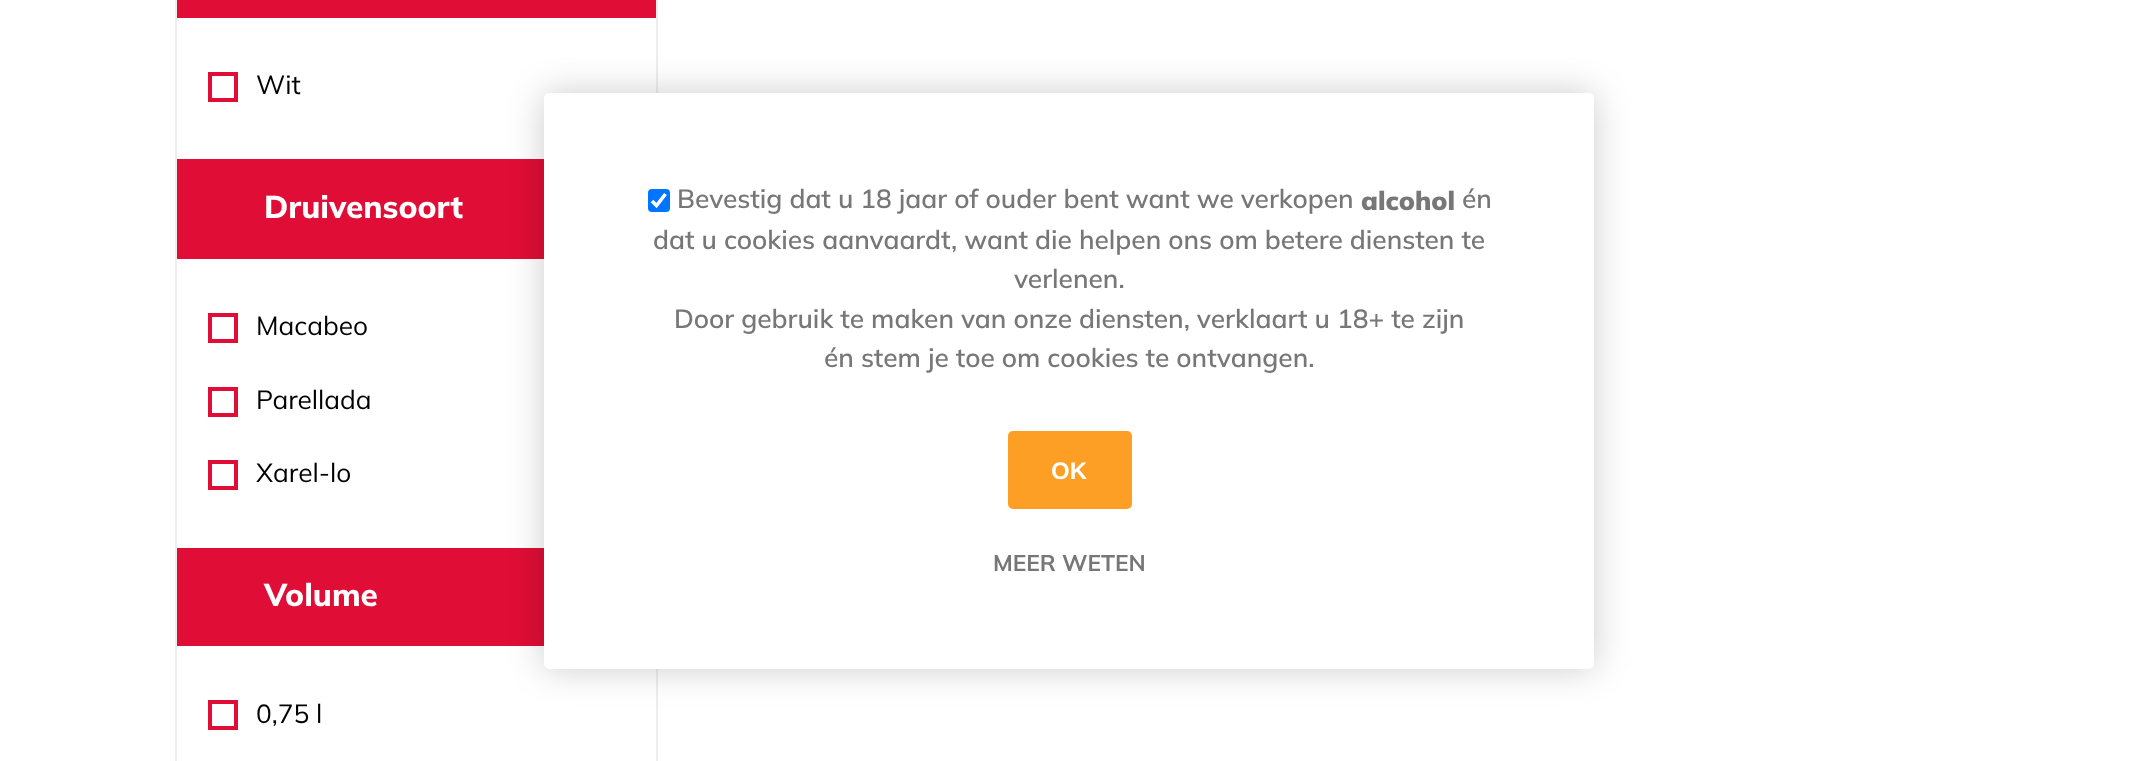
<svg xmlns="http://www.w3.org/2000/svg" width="2138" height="761">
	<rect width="100%" height="100%" fill="#FFFFFF" />
	<rect x="176" y="-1" width="481" height="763" fill="none" stroke="#EEEEEE" stroke-width="2" />
	<rect x="177" y="0" width="479" height="18" fill="#E00E36" />
	<rect x="210" y="74" width="26" height="26" fill="none" stroke="#E00E36" stroke-width="4" />
	<text x="256" y="94" font-family="Mulish" font-size="26.25" fill="#000000">Wit</text>
	<rect x="177" y="159" width="367" height="100" fill="#E00E36" />
	<text x="264" y="218" font-family="Mulish" font-size="31.5" font-weight="800" fill="#FFFFFF">Druivensoort</text>
	<rect x="210" y="315" width="26" height="26" fill="none" stroke="#E00E36" stroke-width="4" />
	<text x="256" y="335" font-family="Mulish" font-size="26.25" fill="#000000">Macabeo</text>
	<rect x="210" y="389" width="26" height="26" fill="none" stroke="#E00E36" stroke-width="4" />
	<text x="256" y="409" font-family="Mulish" font-size="26.25" fill="#000000">Parellada</text>
	<rect x="210" y="462" width="26" height="26" fill="none" stroke="#E00E36" stroke-width="4" />
	<text x="256" y="482" font-family="Mulish" font-size="26.25" fill="#000000">Xarel-lo</text>
	<rect x="177" y="548" width="367" height="98" fill="#E00E36" />
	<text x="264" y="606" font-family="Mulish" font-size="31.5" font-weight="800" fill="#FFFFFF">Volume</text>
	<rect x="210" y="702" width="26" height="26" fill="none" stroke="#E00E36" stroke-width="4" />
	<text x="256" y="723" font-family="Mulish" font-size="26.25" fill="#000000">0,75 l</text>
	<rect x="544" y="93" width="1050" height="576" rx="5" fill="#000000" fill-opacity="0.2" filter="blur(17.5px)" />
	<rect x="544" y="93" width="1050" height="576" rx="5" fill="#FFFFFF" />
	<rect x="648" y="189" width="22" height="23" rx="4" fill="#0075FF" />
	<path d="M652 201L656.5 205.5L665.5 194" fill="none" stroke="#FFFFFF" stroke-width="3.6" />
	<text x="677" y="208" font-family="Mulish" font-size="26.25" font-weight="600" fill="#777777">Bevestig dat u 18 jaar of ouder bent want we verkopen</text>
	<text x="1361" y="210" font-family="Mulish" font-size="26.25" font-weight="900" fill="#777777">alcohol</text>
	<g font-family="Mulish" font-size="26.25" font-weight="600" fill="#777777">
		<text x="1462" y="208">én</text>
		<text x="653" y="249">dat u cookies aanvaardt, want die helpen ons om betere diensten te</text>
		<text x="1014" y="288">verlenen.</text>
		<text x="674" y="328">Door gebruik te maken van onze diensten, verklaart u 18+ te zijn</text>
		<text x="824" y="367">én stem je toe om cookies te ontvangen.</text>
	</g>
	<rect x="1008" y="431" width="124" height="78" rx="5" fill="#FC9F24" />
	<text x="1051" y="479" font-family="Liberation Sans" font-size="24" font-weight="700" fill="#FFFFFF">OK</text>
	<text x="993" y="571" font-family="Mulish" font-size="22.75" font-weight="700" fill="#777777">MEER WETEN</text>
</svg>
